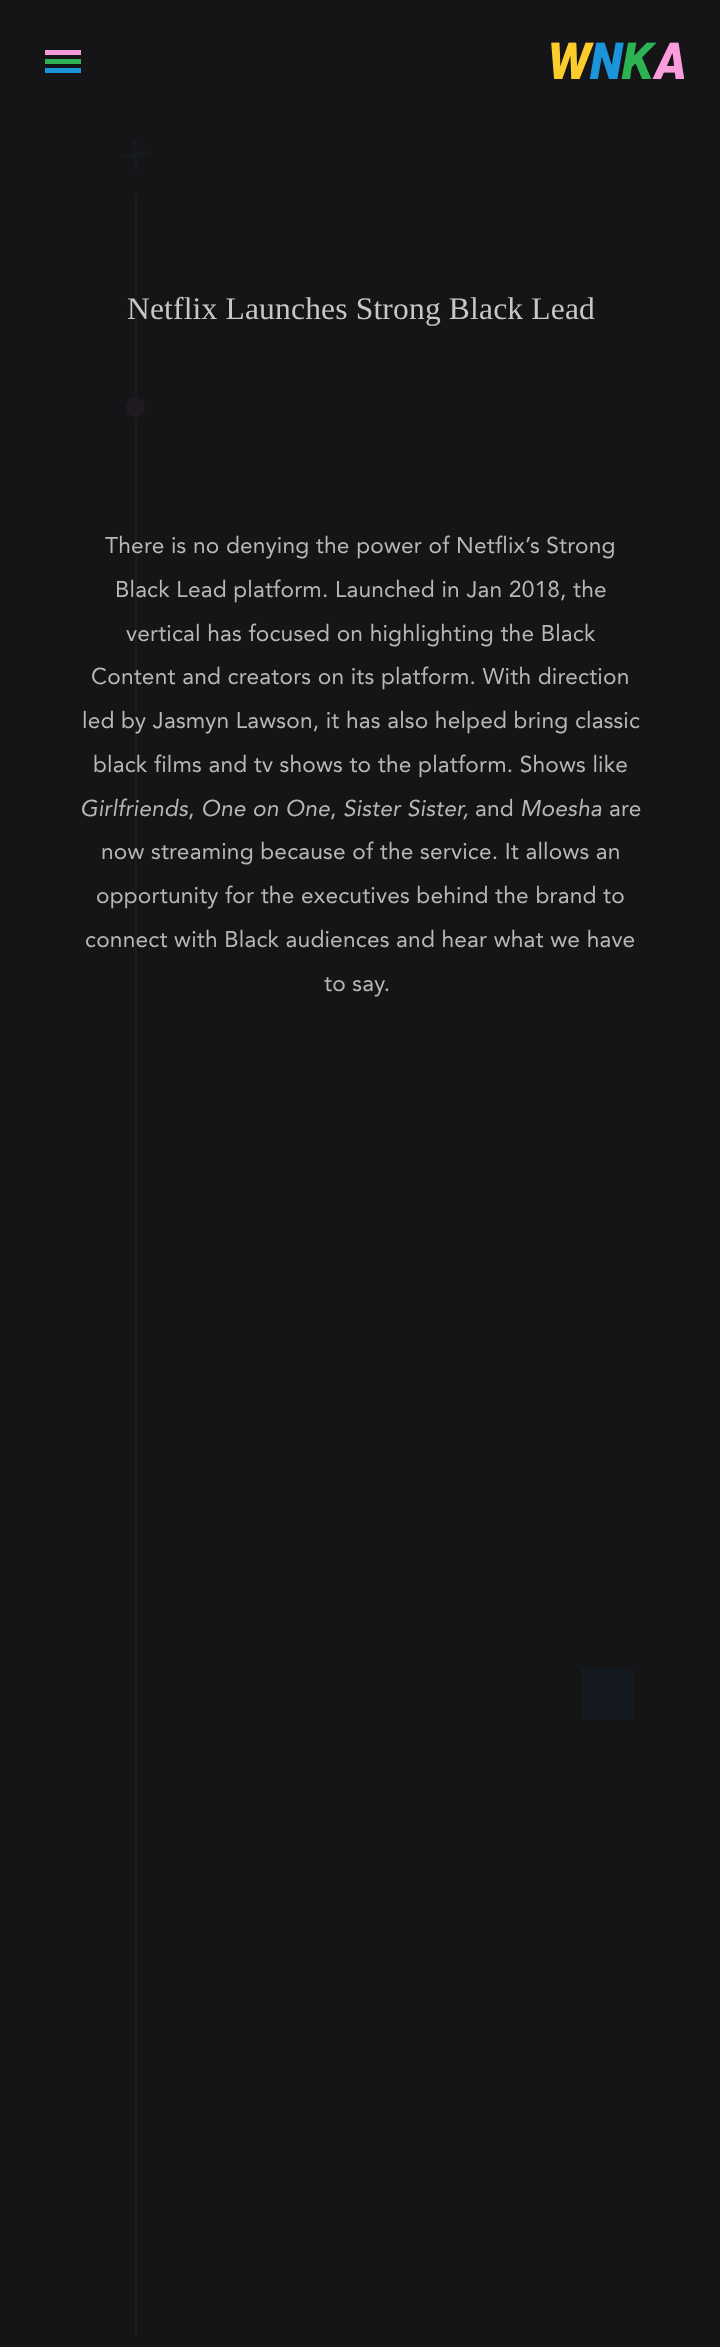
<svg xmlns="http://www.w3.org/2000/svg" width="720" height="2347">
	<rect width="100%" height="100%" fill="#151518" />
	<rect x="45" y="50" width="36" height="5" fill="#F89ADB" />
	<rect x="45" y="59" width="36" height="5" fill="#2DB153" />
	<rect x="45" y="68" width="36" height="5" fill="#1B94DC" />
	<image x="551" y="42" width="133" height="38" href="assets/img1.png" />
	<rect x="135" y="193" width="2" height="2143" fill="#1C1C1F" />
	<rect x="135" y="193" width="2" height="1" fill="#151518" />
	<image x="120" y="139" width="31" height="31" href="assets/img2.png" />
	<text x="127" y="319" font-family="Liberation Serif" font-size="31.5" letter-spacing="0.18" fill="#C7C7C7">Netflix Launches Strong Black Lead</text>
	<g font-family="Avenir" font-size="22.75" letter-spacing="0.18" fill="#B7B7B7">
		<text x="105" y="553">There is no denying the power of Netflix’s Strong</text>
		<text x="115" y="597">Black Lead platform. Launched in Jan 2018, the</text>
		<text x="126" y="641">vertical has focused on highlighting the Black</text>
		<text x="91" y="684">Content and creators on its platform. With direction</text>
		<text x="82" y="728">led by Jasmyn Lawson, it has also helped bring classic</text>
		<text x="93" y="772">black films and tv shows to the platform. Shows like</text>
	</g>
	<text x="80" y="816" font-family="Avenir" font-size="22.75" font-style="italic" letter-spacing="0.18" fill="#B7B7B7">Girlfriends</text>
	<text x="188" y="816" font-family="Avenir" font-size="22.75" letter-spacing="0.18" fill="#B7B7B7">,</text>
	<text x="201" y="816" font-family="Avenir" font-size="22.75" font-style="italic" letter-spacing="0.18" fill="#B7B7B7">One on One</text>
	<text x="330" y="816" font-family="Avenir" font-size="22.75" letter-spacing="0.18" fill="#B7B7B7">,</text>
	<text x="343" y="816" font-family="Avenir" font-size="22.75" font-style="italic" letter-spacing="0.18" fill="#B7B7B7">Sister Sister,</text>
	<text x="475" y="816" font-family="Avenir" font-size="22.75" letter-spacing="0.18" fill="#B7B7B7">and</text>
	<text x="520" y="816" font-family="Avenir" font-size="22.75" font-style="italic" letter-spacing="0.18" fill="#B7B7B7">Moesha</text>
	<g font-family="Avenir" font-size="22.75" letter-spacing="0.18" fill="#B7B7B7">
		<text x="609" y="816">are</text>
		<text x="101" y="859">now streaming because of the service. It allows an</text>
		<text x="96" y="903">opportunity for the executives behind the brand to</text>
		<text x="85" y="947">connect with Black audiences and hear what we have</text>
		<text x="324" y="991">to say.</text>
	</g>
	<rect x="581" y="1668" width="53" height="52" fill="#151A20" />
	<rect x="126" y="397" width="19" height="20" rx="9.5" fill="#1E1A1F" />
</svg>
